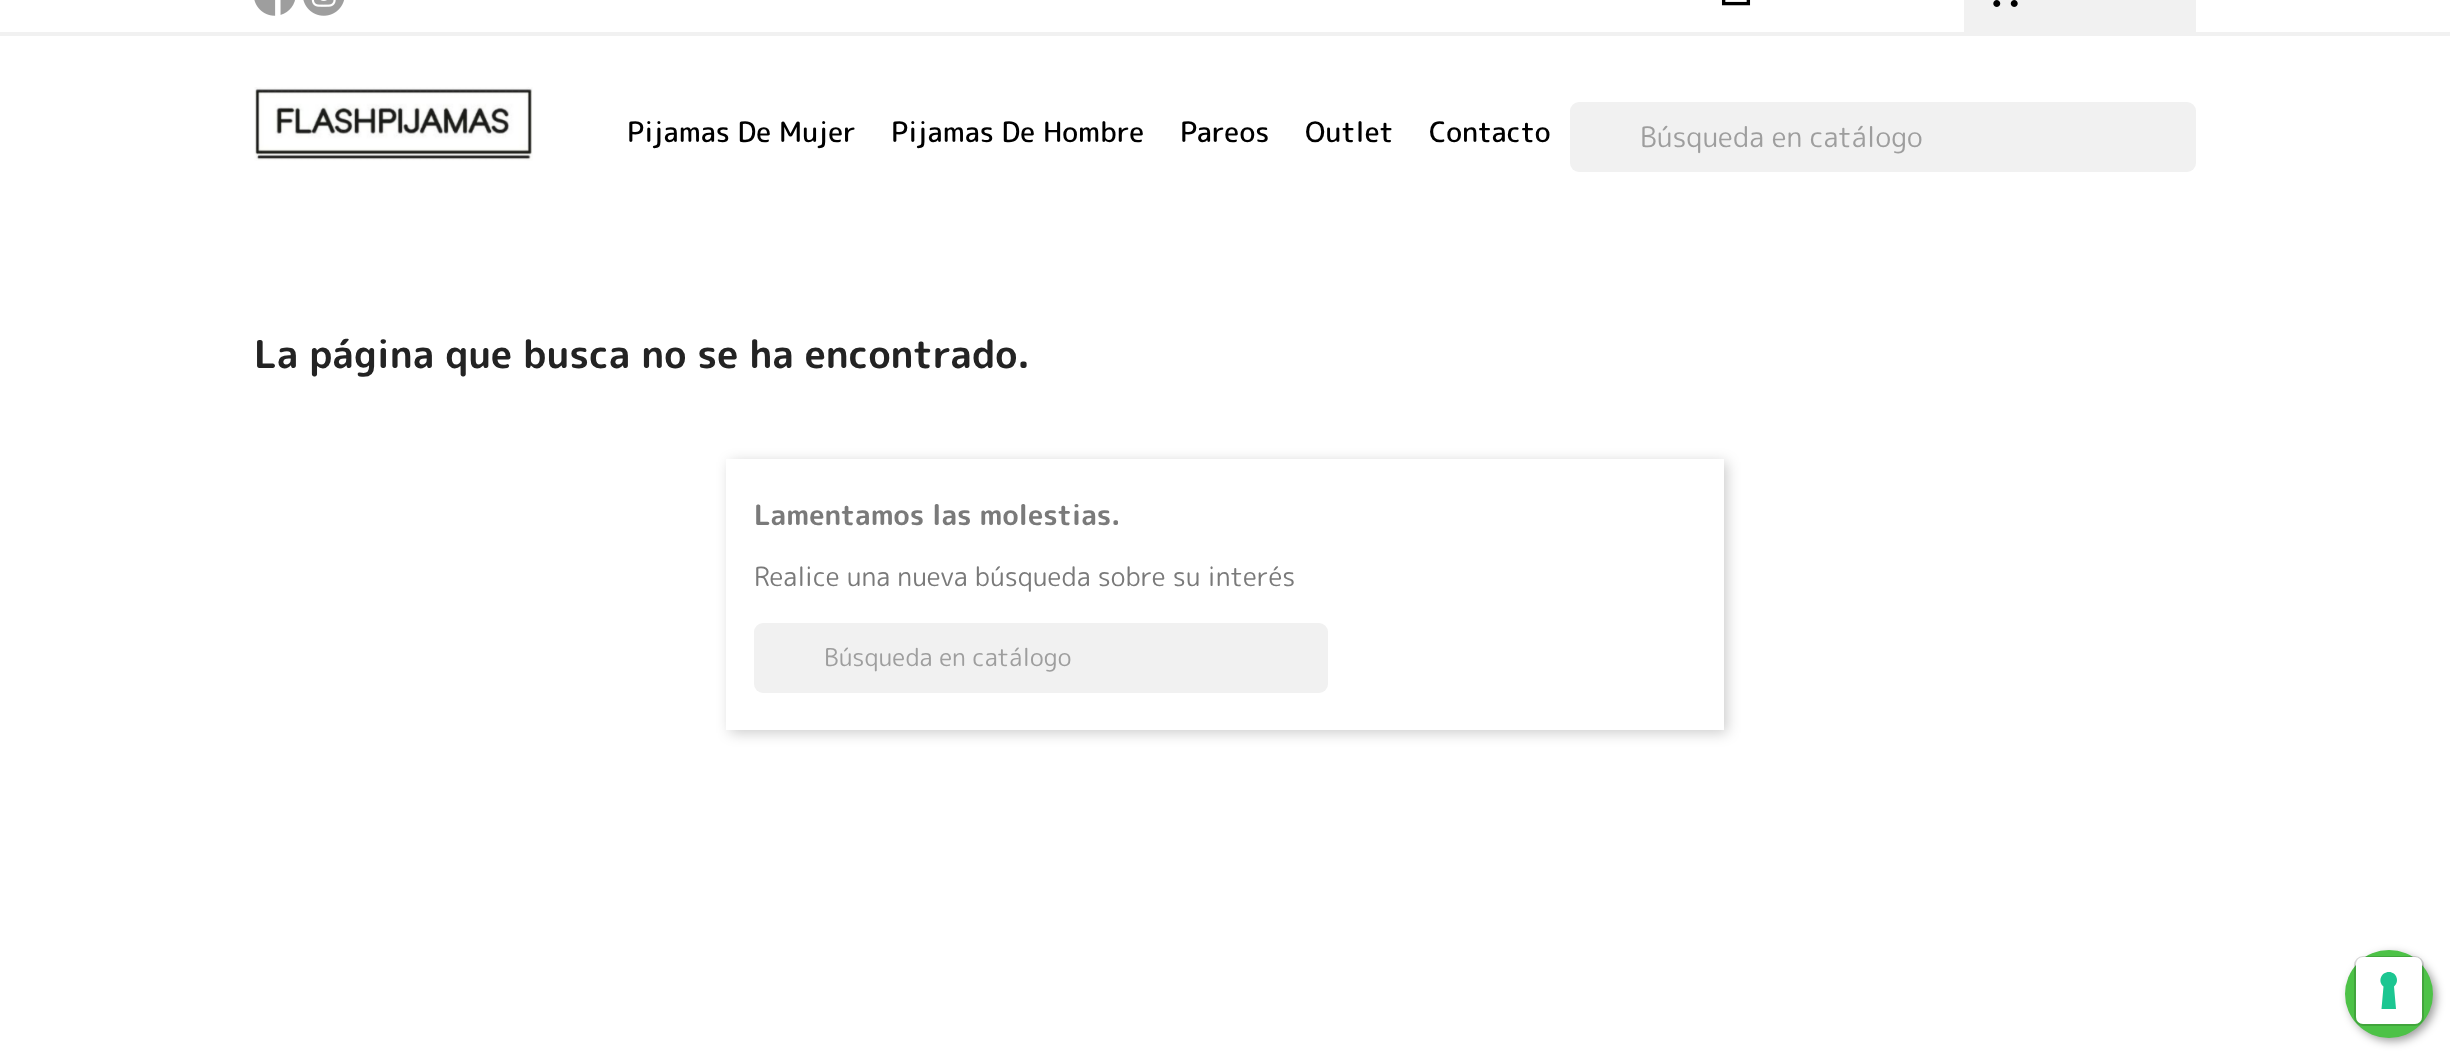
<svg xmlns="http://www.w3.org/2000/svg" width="2450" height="1051">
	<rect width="100%" height="100%" fill="#FFFFFF" />
	<rect x="0" y="32" width="2450" height="4" fill="#F1F1F1" />
	<image x="254" y="0" width="41" height="16" href="assets/img1.png" />
	<image x="303" y="0" width="41" height="16" href="assets/img2.png" />
	<image x="1721" y="0" width="30" height="6" href="assets/img3.png" />
	<rect x="1964" y="0" width="232" height="32" fill="#F1F1F1" />
	<image x="1993" y="0" width="25" height="7" href="assets/img4.png" />
	<image x="254" y="87" width="279" height="74" href="assets/img5.png" />
	<g font-family="'Rounded Mplus 1c'" font-size="28" font-weight="500" fill="#000000">
		<text x="627" y="142">Pijamas De Mujer</text>
		<text x="891" y="142">Pijamas De Hombre</text>
		<text x="1180" y="142">Pareos</text>
		<text x="1305" y="142">Outlet</text>
		<text x="1429" y="142">Contacto</text>
	</g>
	<rect x="1570" y="102" width="626" height="70" rx="9" fill="#F1F1F1" />
	<text x="1640" y="147" font-family="'Rounded Mplus 1c'" font-size="28" fill="#9E9E9E">Búsqueda en catálogo</text>
	<text x="254" y="368" font-family="'Rounded Mplus 1c Bold'" font-size="38.5" font-weight="700" fill="#232323">La página que busca no se ha encontrado.</text>
	<rect x="730" y="462" width="997" height="271" fill="#000000" fill-opacity="0.2" filter="blur(7px)" />
	<rect x="726" y="459" width="998" height="271" fill="#FFFFFF" />
	<text x="754" y="525" font-family="'Rounded Mplus 1c Bold'" font-size="28" font-weight="700" fill="#7A7A7A">Lamentamos las molestias.</text>
	<text x="754" y="586" font-family="'Rounded Mplus 1c'" font-size="26.25" fill="#7A7A7A">Realice una nueva búsqueda sobre su interés</text>
	<rect x="754" y="623" width="574" height="70" rx="9" fill="#F1F1F1" />
	<text x="824" y="666" font-family="'Rounded Mplus 1c'" font-size="24.5" fill="#9E9E9E">Búsqueda en catálogo</text>
	<rect x="2349" y="954" width="87" height="87" rx="43.5" fill="#000000" fill-opacity="0.4" filter="blur(5px)" />
	<circle cx="2389" cy="994" r="44" fill="#4DC247" />
	<rect x="2355" y="957" width="68" height="68" rx="8" fill="none" stroke="#000000" stroke-opacity="0.15" stroke-width="2" />
	<rect x="2356" y="957" width="66" height="67" rx="7" fill="#FFFFFF" />
	<path d="M2389 972C2396.5 972 2400 981.5 2394 986.5L2396 1009H2381.5L2383.5 986.5C2377.5 981.5 2381 972 2389 972Z" fill="#1CC691" fill-rule="evenodd" />
</svg>
